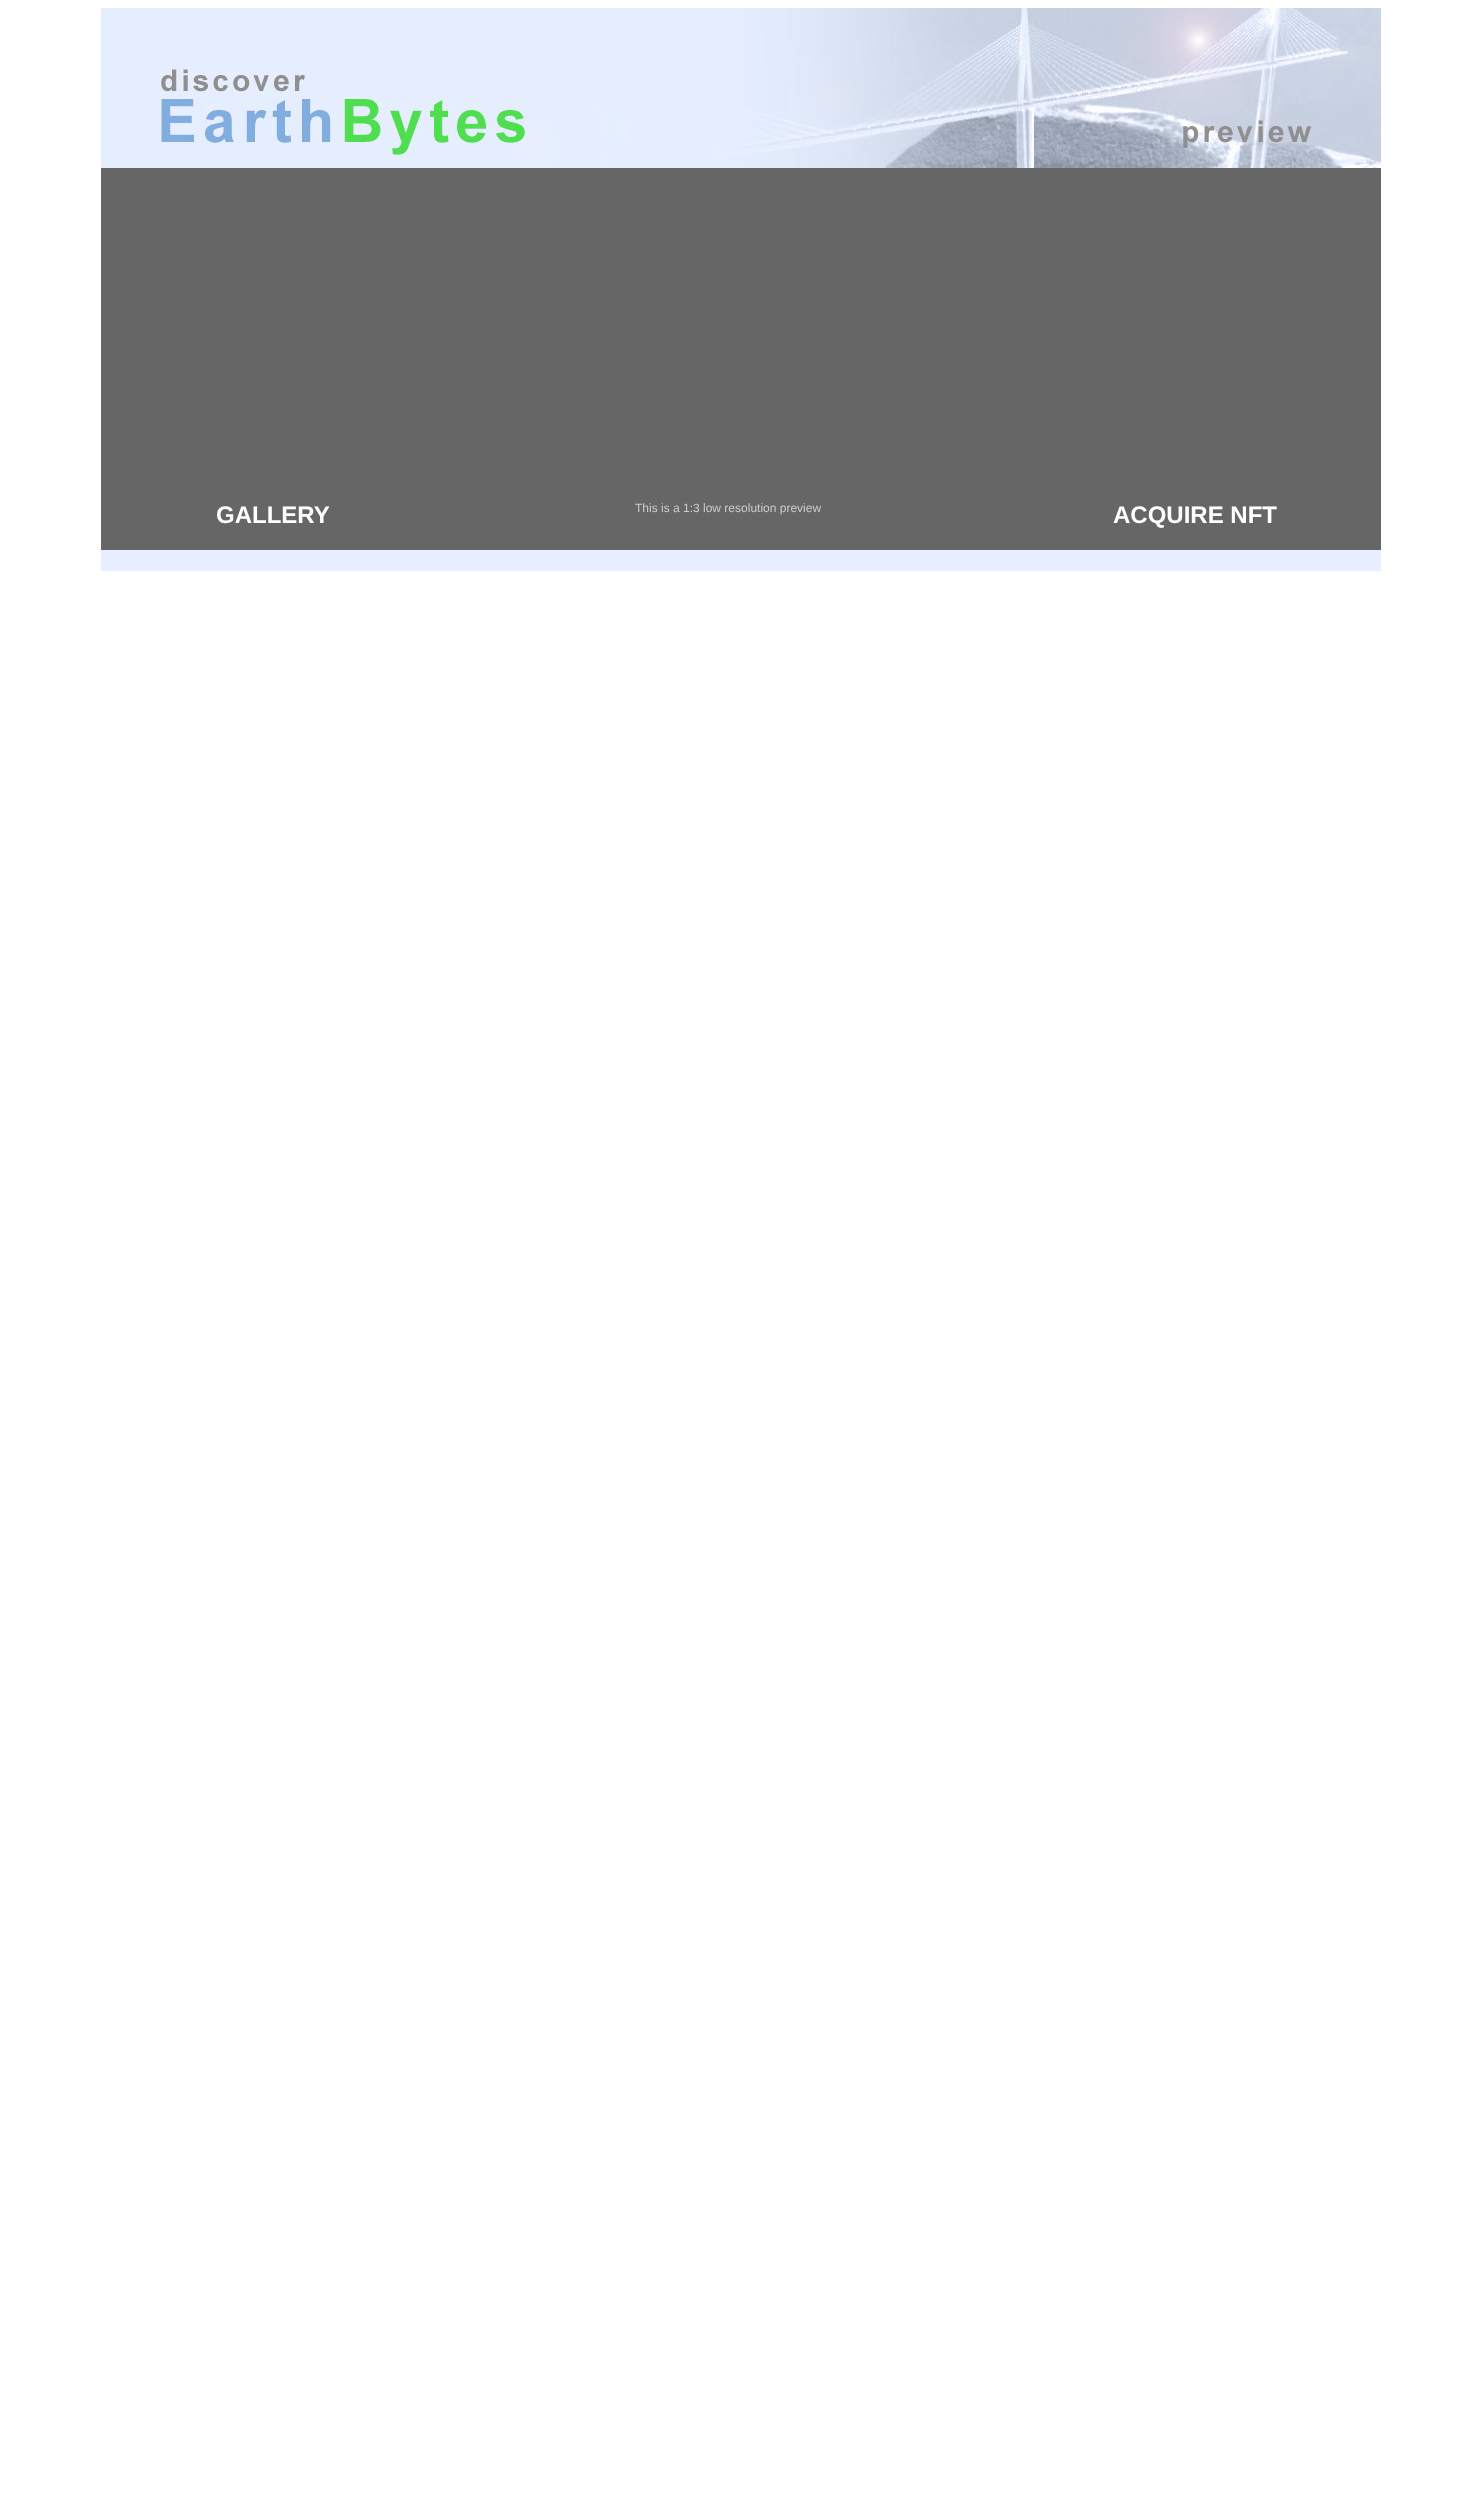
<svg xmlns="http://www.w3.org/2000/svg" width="1481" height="2494">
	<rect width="100%" height="100%" fill="#FFFFFF" />
	<rect x="101" y="168" width="1280" height="382" fill="#666666" />
	<image x="101" y="8" width="1280" height="160" href="assets/img1.png" />
	<text x="216" y="523" font-family="Liberation Sans" font-size="24" font-weight="700" fill="#FFFFFF">GALLERY</text>
	<text x="635" y="512" font-family="Liberation Sans" font-size="12" fill="#CCCCCC">This is a 1:3 low resolution preview</text>
	<text x="1113" y="523" font-family="Liberation Sans" font-size="24" font-weight="700" fill="#FFFFFF">ACQUIRE NFT</text>
	<rect x="101" y="550" width="1280" height="21" fill="#E6EEFF" />
</svg>
